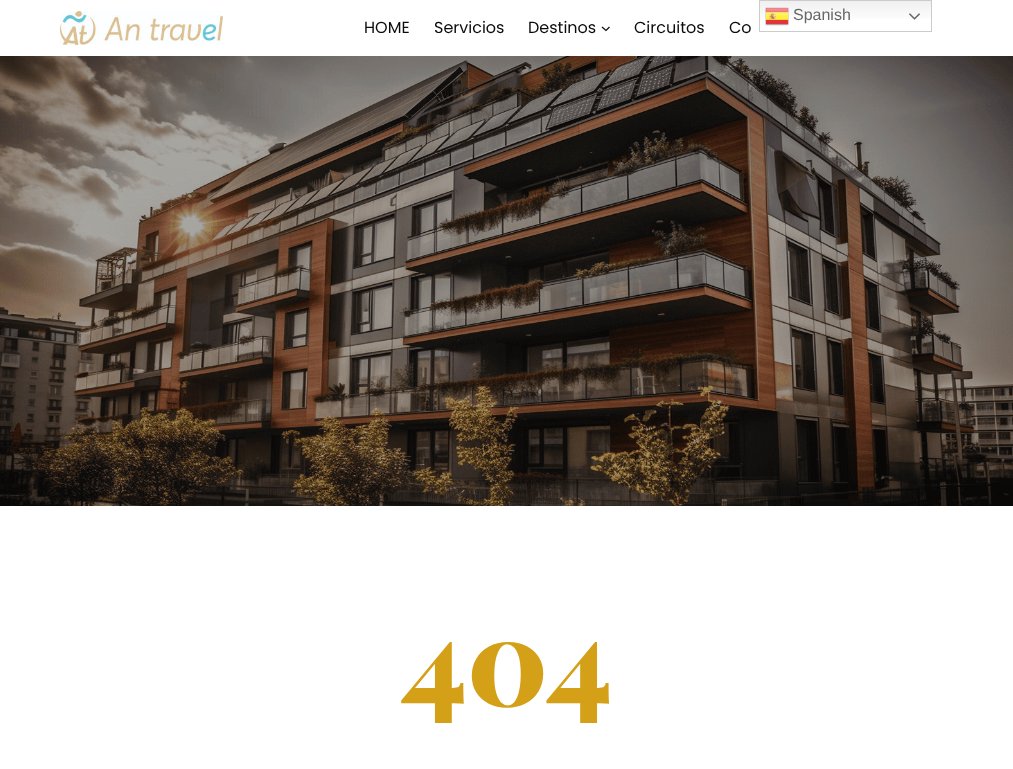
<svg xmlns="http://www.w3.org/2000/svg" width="1013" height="769">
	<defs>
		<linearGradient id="g1" gradientUnits="userSpaceOnUse" x1="846" y1="0" x2="846" y2="32"><stop offset="0" stop-color="#EFEFEF" /><stop offset="0.7" stop-color="#FFFFFF" /></linearGradient>
	</defs>
	<rect width="100%" height="100%" fill="#FFFFFF" />
	<rect x="760" y="1" width="171" height="18" fill="url(#g1)" />
	<rect x="759.5" y="0.5" width="172" height="31" fill="none" stroke="#CCCCCC" />
	<image x="765" y="7" width="24" height="19" href="assets/img1.png" />
	<text x="793" y="20" font-family="Liberation Sans" font-size="16" fill="#666666">Spanish</text>
	<image x="909" y="13" width="11" height="7" href="assets/img2.png" />
	<image x="60" y="11" width="163" height="34" href="assets/img3.png" />
	<g font-family="Poppins" font-size="16" fill="#0D0C0C">
		<text x="364" y="33">HOME</text>
		<text x="434" y="33">Servicios</text>
		<text x="528" y="33">Destinos</text>
	</g>
	<path d="M602 27L606 30.5L609.5 27" fill="none" stroke="#0D0C0C" stroke-width="1.2" />
	<g font-family="Poppins" font-size="16" fill="#0D0C0C">
		<text x="634" y="33">Circuitos</text>
		<text x="729" y="33">Co</text>
	</g>
	<image x="0" y="56" width="1013" height="450" href="assets/img4.png" />
	<text x="401" y="706" font-family="Playfair Display" font-size="120" font-weight="900" fill="#D4A017">404</text>
</svg>
